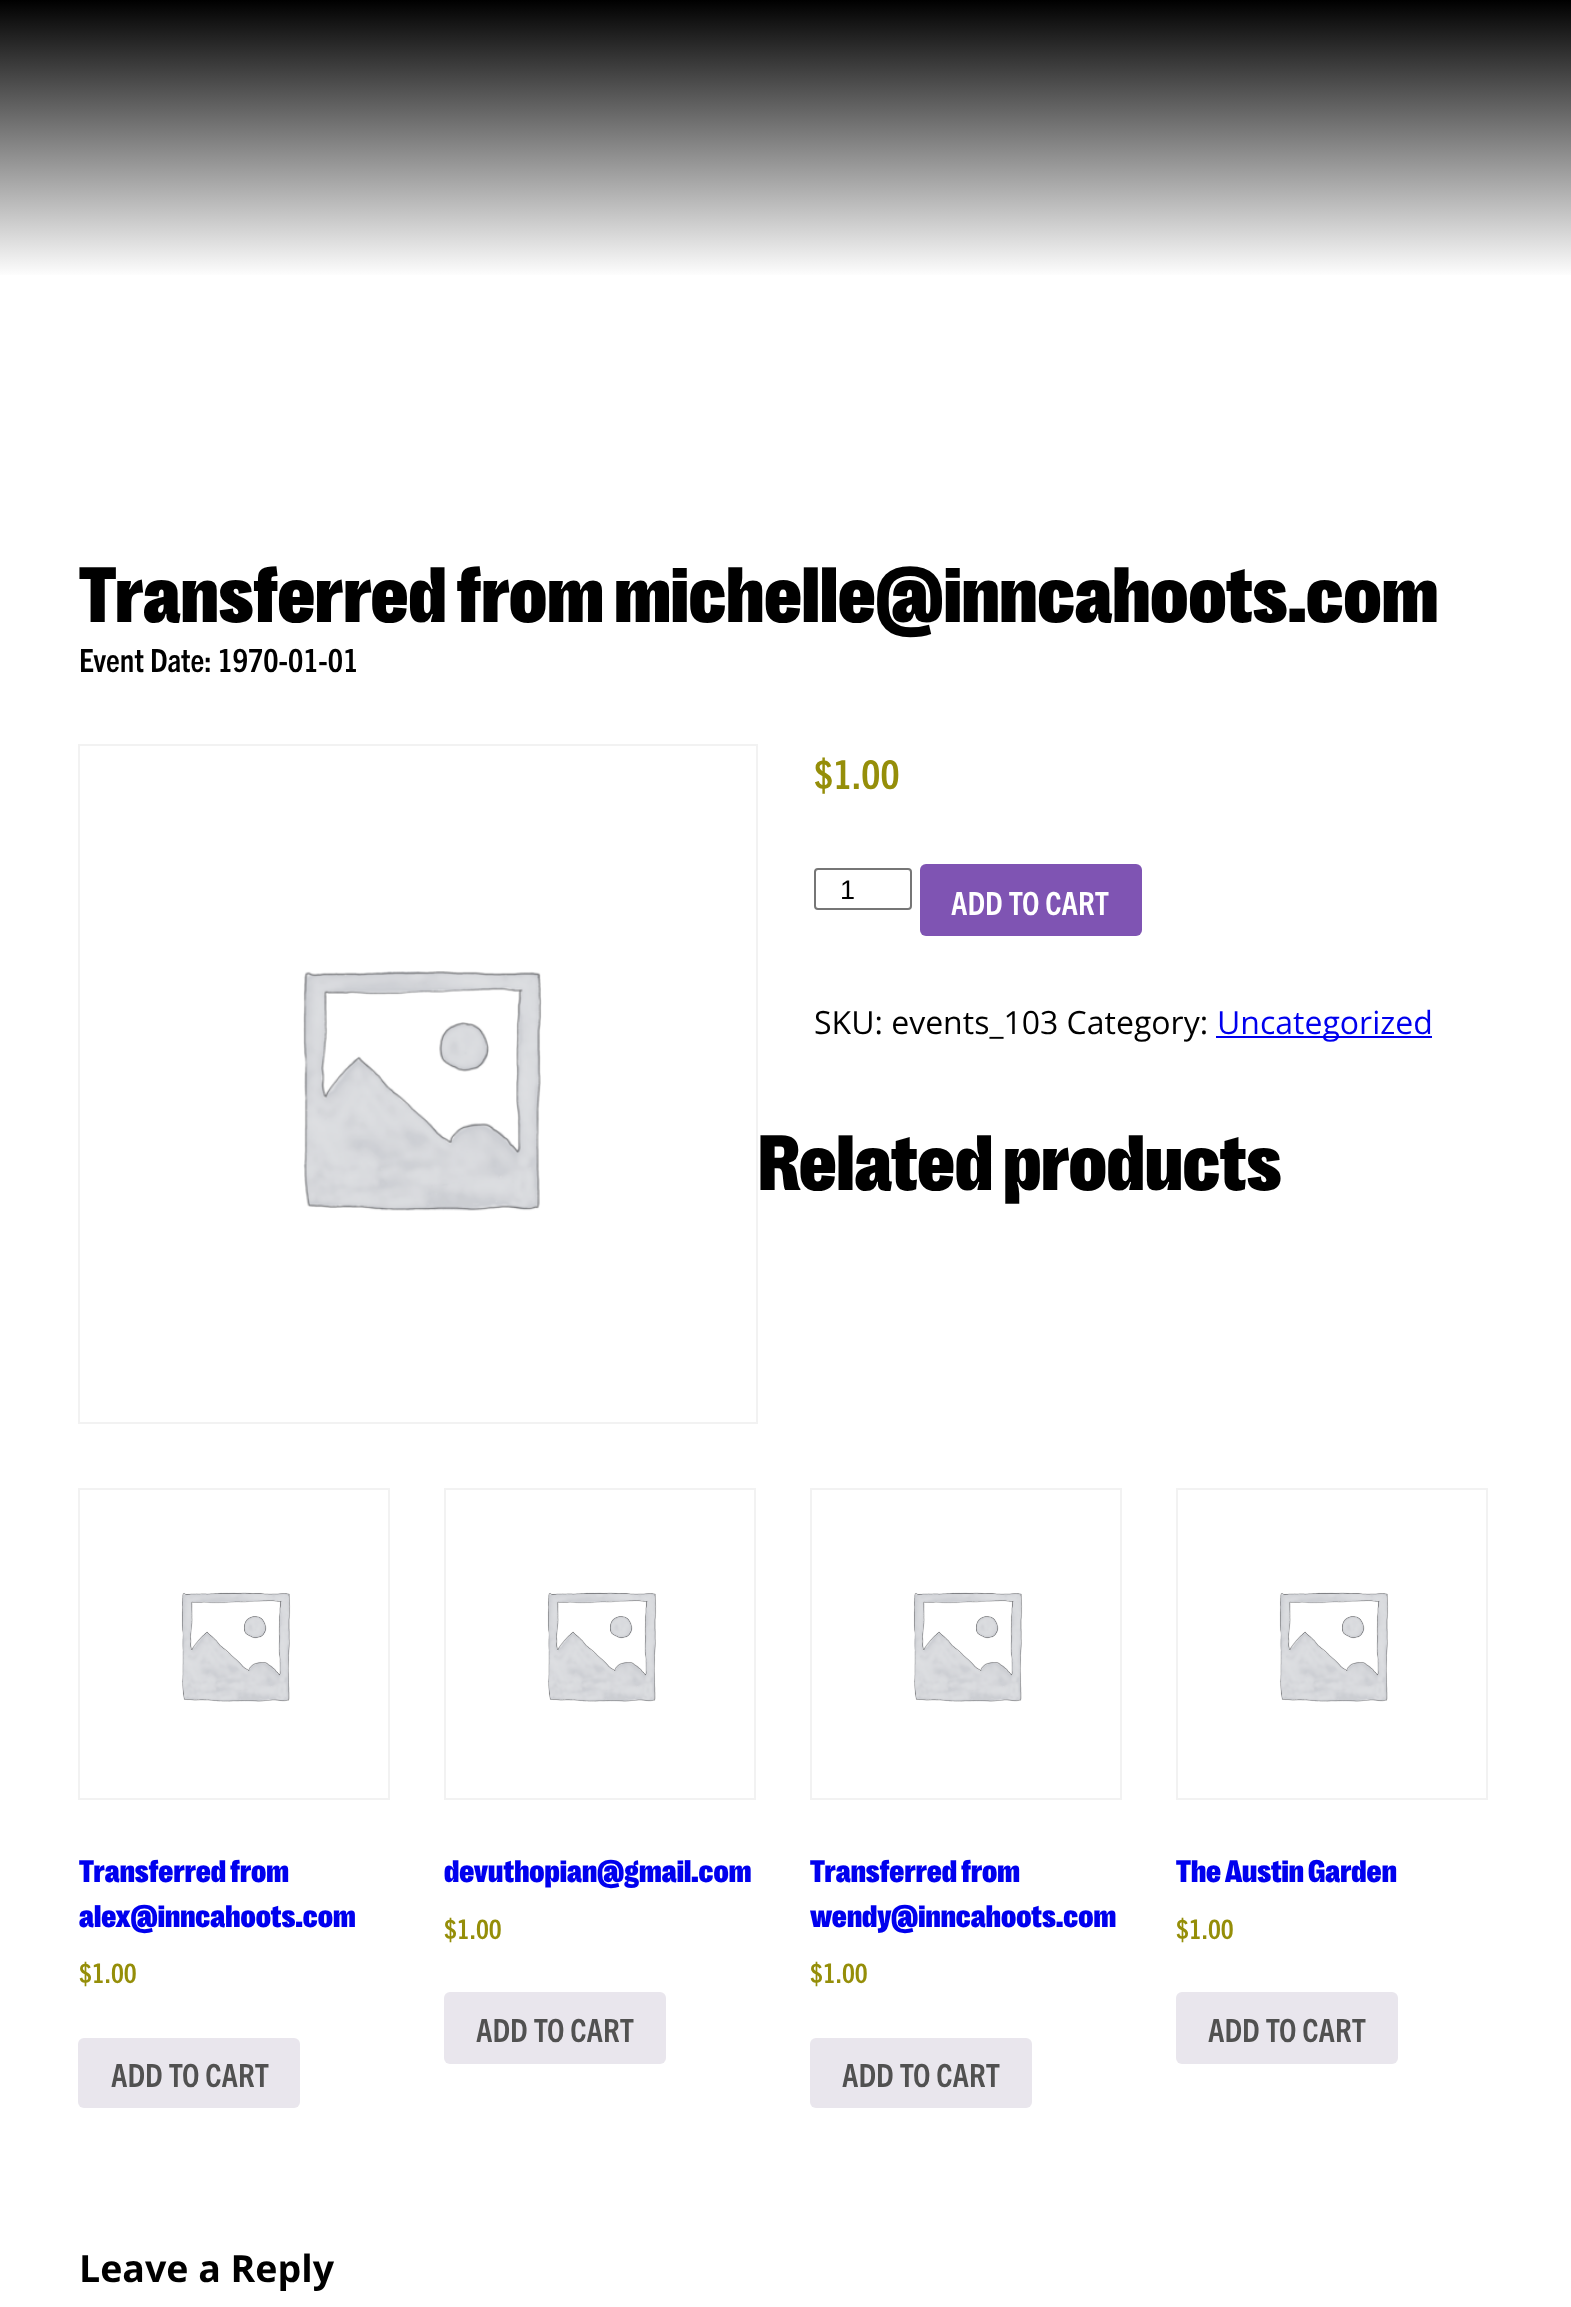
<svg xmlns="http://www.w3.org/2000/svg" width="1571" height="2307">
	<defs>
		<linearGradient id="g1" gradientUnits="userSpaceOnUse" x1="786" y1="0" x2="786" y2="380"><stop offset="0" stop-color="#000000" /><stop offset="0.73" stop-color="#FFFFFF" /></linearGradient>
	</defs>
	<rect width="100%" height="100%" fill="#FFFFFF" />
	<rect x="0" y="0" width="1571" height="275" fill="url(#g1)" />
	<text x="79" y="622" font-family="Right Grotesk" font-size="80" font-weight="900" fill="#000000">Transferred from michelle@inncahoots.com</text>
	<text x="79" y="672" font-family="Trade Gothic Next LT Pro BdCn" font-size="32" font-weight="700" fill="#000000">Event Date: 1970-01-01</text>
	<rect x="79" y="745" width="678" height="678" fill="none" stroke="#F2F2F2" stroke-width="2" />
	<image x="303" y="971" width="239" height="240" href="assets/img1.png" />
	<text x="814" y="789" font-family="Trade Gothic Next LT Pro BdCn" font-size="40" font-weight="700" fill="#958E09">$1.00</text>
	<rect x="815" y="869" width="96" height="40" rx="3" fill="none" stroke="#767676" stroke-width="2" />
	<text x="840" y="899" font-family="Liberation Sans" font-size="27" fill="#000000">1</text>
	<rect x="920" y="864" width="222" height="72" rx="6" fill="#7F54B3" />
	<text x="951" y="915" font-family="Trade Gothic Next LT Pro BdCn" font-size="32" font-weight="700" fill="#FFFFFF">ADD TO CART</text>
	<text x="814" y="1034" font-family="Open Sans" font-size="32" fill="#000000">SKU: events_103 Category:</text>
	<rect x="1216" y="1036" width="216" height="2" fill="#0000EE" />
	<text x="1217" y="1034" font-family="Open Sans" font-size="32" fill="#0000EE">Uncategorized</text>
	<text x="758" y="1190" font-family="Right Grotesk" font-size="80" font-weight="900" fill="#000000">Related products</text>
	<rect x="79" y="1489" width="310" height="310" fill="none" stroke="#F2F2F2" stroke-width="2" />
	<image x="181" y="1592" width="110" height="110" href="assets/img2.png" />
	<g font-family="Right Grotesk" font-size="32" font-weight="900" fill="#0000EE">
		<text x="79" y="1882">Transferred from</text>
		<text x="79" y="1927">alex@inncahoots.com</text>
	</g>
	<text x="79" y="1983" font-family="Trade Gothic Next LT Pro BdCn" font-size="27" font-weight="700" fill="#958E09">$1.00</text>
	<rect x="78" y="2038" width="222" height="70" rx="6" fill="#E9E6ED" />
	<text x="111" y="2087" font-family="Trade Gothic Next LT Pro BdCn" font-size="32" font-weight="700" fill="#515151">ADD TO CART</text>
	<rect x="445" y="1489" width="310" height="310" fill="none" stroke="#F2F2F2" stroke-width="2" />
	<image x="547" y="1592" width="110" height="110" href="assets/img2.png" />
	<text x="444" y="1882" font-family="Right Grotesk" font-size="32" font-weight="900" fill="#0000EE">devuthopian@gmail.com</text>
	<text x="444" y="1939" font-family="Trade Gothic Next LT Pro BdCn" font-size="27" font-weight="700" fill="#958E09">$1.00</text>
	<rect x="444" y="1992" width="222" height="72" rx="6" fill="#E9E6ED" />
	<text x="476" y="2042" font-family="Trade Gothic Next LT Pro BdCn" font-size="32" font-weight="700" fill="#515151">ADD TO CART</text>
	<rect x="811" y="1489" width="310" height="310" fill="none" stroke="#F2F2F2" stroke-width="2" />
	<image x="913" y="1592" width="110" height="110" href="assets/img2.png" />
	<g font-family="Right Grotesk" font-size="32" font-weight="900" fill="#0000EE">
		<text x="810" y="1882">Transferred from</text>
		<text x="810" y="1927">wendy@inncahoots.com</text>
	</g>
	<text x="810" y="1983" font-family="Trade Gothic Next LT Pro BdCn" font-size="27" font-weight="700" fill="#958E09">$1.00</text>
	<rect x="810" y="2038" width="222" height="70" rx="6" fill="#E9E6ED" />
	<text x="842" y="2087" font-family="Trade Gothic Next LT Pro BdCn" font-size="32" font-weight="700" fill="#515151">ADD TO CART</text>
	<rect x="1177" y="1489" width="310" height="310" fill="none" stroke="#F2F2F2" stroke-width="2" />
	<image x="1279" y="1592" width="110" height="110" href="assets/img2.png" />
	<text x="1176" y="1882" font-family="Right Grotesk" font-size="32" font-weight="900" fill="#0000EE">The Austin Garden</text>
	<text x="1176" y="1939" font-family="Trade Gothic Next LT Pro BdCn" font-size="27" font-weight="700" fill="#958E09">$1.00</text>
	<rect x="1176" y="1992" width="222" height="72" rx="6" fill="#E9E6ED" />
	<text x="1208" y="2042" font-family="Trade Gothic Next LT Pro BdCn" font-size="32" font-weight="700" fill="#515151">ADD TO CART</text>
	<text x="79" y="2282" font-family="Open Sans" font-size="37.5" font-weight="700" fill="#000000">Leave a Reply</text>
</svg>
